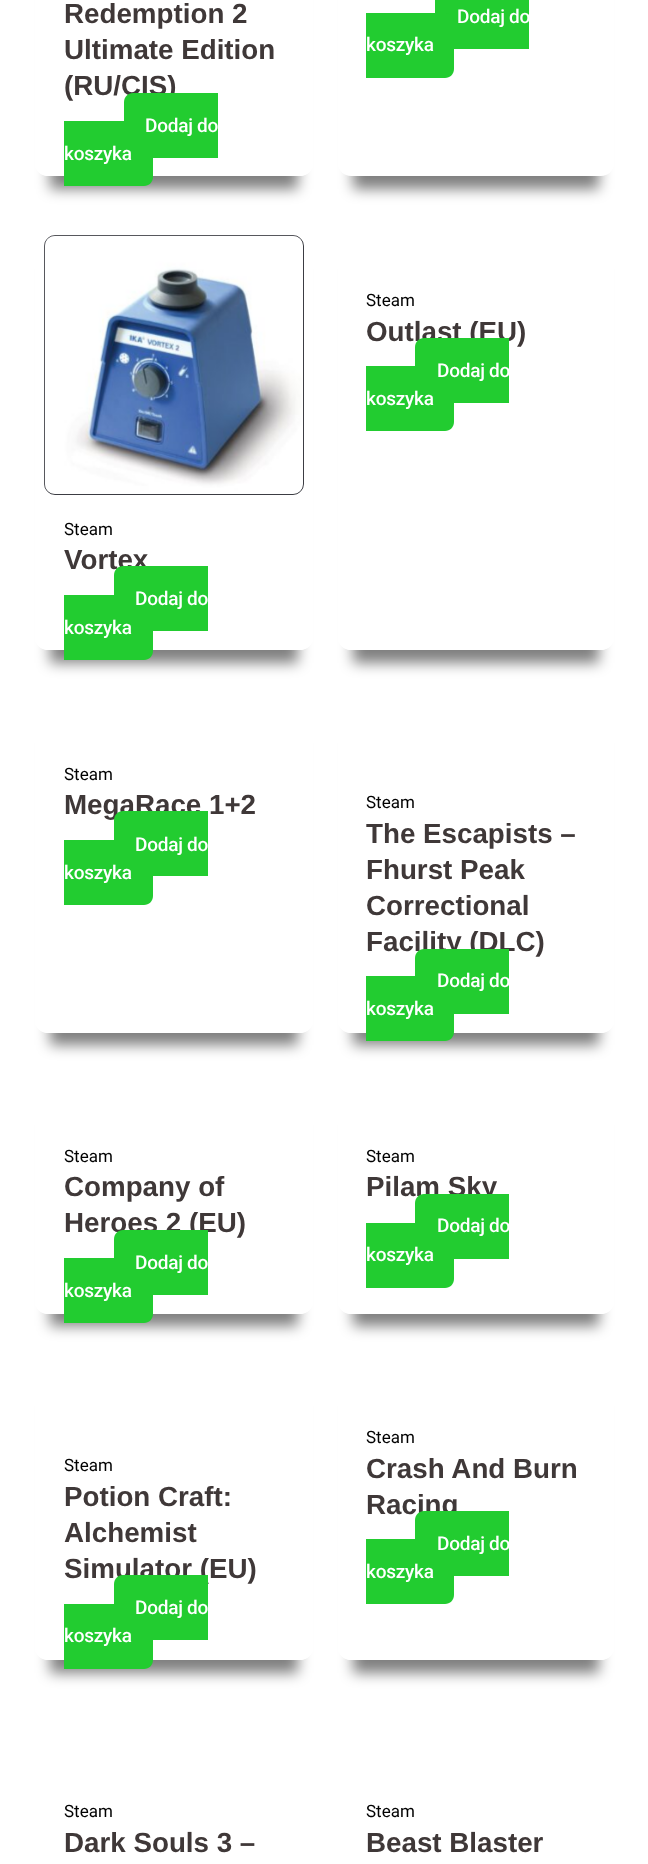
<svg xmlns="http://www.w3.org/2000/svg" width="648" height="1864">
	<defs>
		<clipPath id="clip1"><path d="M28 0H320V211H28ZM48-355H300C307-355 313-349 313-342V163C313 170 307 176 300 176H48C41 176 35 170 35 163V-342C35-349 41-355 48-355Z" clip-rule="evenodd" /></clipPath>
		<clipPath id="clip2"><path d="M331 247H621V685H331ZM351 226H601C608 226 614 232 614 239V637C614 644 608 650 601 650H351C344 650 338 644 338 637V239C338 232 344 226 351 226Z" clip-rule="evenodd" /></clipPath>
		<clipPath id="clip3"><path d="M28 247H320V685H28ZM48 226H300C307 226 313 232 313 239V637C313 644 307 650 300 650H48C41 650 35 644 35 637V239C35 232 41 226 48 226Z" clip-rule="evenodd" /></clipPath>
		<clipPath id="clip4"><path d="M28 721H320V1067H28ZM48 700H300C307 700 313 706 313 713V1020C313 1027 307 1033 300 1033H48C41 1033 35 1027 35 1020V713C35 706 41 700 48 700Z" clip-rule="evenodd" /></clipPath>
		<clipPath id="clip5"><path d="M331 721H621V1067H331ZM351 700H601C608 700 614 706 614 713V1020C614 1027 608 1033 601 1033H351C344 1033 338 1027 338 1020V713C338 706 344 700 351 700Z" clip-rule="evenodd" /></clipPath>
		<clipPath id="clip6"><path d="M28 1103H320V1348H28ZM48 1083H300C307 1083 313 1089 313 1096V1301C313 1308 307 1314 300 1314H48C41 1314 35 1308 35 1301V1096C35 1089 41 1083 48 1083Z" clip-rule="evenodd" /></clipPath>
		<clipPath id="clip7"><path d="M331 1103H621V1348H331ZM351 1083H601C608 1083 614 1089 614 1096V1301C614 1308 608 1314 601 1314H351C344 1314 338 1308 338 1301V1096C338 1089 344 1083 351 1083Z" clip-rule="evenodd" /></clipPath>
		<clipPath id="clip8"><path d="M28 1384H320V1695H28ZM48 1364H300C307 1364 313 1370 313 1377V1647C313 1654 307 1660 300 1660H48C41 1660 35 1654 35 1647V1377C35 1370 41 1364 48 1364Z" clip-rule="evenodd" /></clipPath>
		<clipPath id="clip9"><path d="M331 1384H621V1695H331ZM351 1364H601C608 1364 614 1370 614 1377V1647C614 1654 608 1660 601 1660H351C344 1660 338 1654 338 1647V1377C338 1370 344 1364 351 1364Z" clip-rule="evenodd" /></clipPath>
	</defs>
	<rect width="100%" height="100%" fill="#FFFFFF" />
	<g clip-path="url(#clip1)">
		<rect x="50" y="-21" width="248" height="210" fill="#000000" fill-opacity="0.5" filter="blur(7px)" />
	</g>
	<rect x="35" y="-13" width="278" height="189" rx="13" fill="#FFFFFF" fill-opacity="0.99" />
	<g font-family="Liberation Sans" font-size="27.75" font-weight="700" fill="#3F3838">
		<text x="64" y="23">Redemption 2</text>
		<text x="64" y="59">Ultimate Edition</text>
		<text x="64" y="95">(RU/CIS)</text>
	</g>
	<path d="M133 93H218V158H133C128 158 124 154 124 149V102C124 97 128 93 133 93Z" fill="#22CC30" />
	<path d="M64 121H144C149 121 153 125 153 130V177C153 182 149 186 144 186H64Z" fill="#22CC30" />
	<g font-family="Roboto" font-size="19" font-weight="500" letter-spacing="-0.25" fill="#FFFFFF">
		<text x="145" y="132">Dodaj do</text>
		<text x="64" y="160">koszyka</text>
	</g>
	<rect x="353" y="-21" width="246" height="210" fill="#000000" fill-opacity="0.5" filter="blur(7px)" />
	<rect x="338" y="-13" width="276" height="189" rx="13" fill="#FFFFFF" />
	<rect x="435" y="0" width="94" height="49" fill="#22CC30" />
	<text x="457" y="23" font-family="Roboto" font-size="19" font-weight="500" letter-spacing="-0.25" fill="#FFFFFF">Dodaj do</text>
	<path d="M366 13H445C450 13 454 17 454 22V69C454 74 450 78 445 78H366Z" fill="#22CC30" />
	<text x="366" y="51" font-family="Roboto" font-size="19" font-weight="500" letter-spacing="-0.25" fill="#FFFFFF">koszyka</text>
	<g clip-path="url(#clip2)">
		<rect x="353" y="269" width="246" height="394" fill="#000000" fill-opacity="0.5" filter="blur(7px)" />
	</g>
	<rect x="339.5" y="227.5" width="273" height="421" rx="11.5" fill="#FFFFFF" fill-opacity="0.99" stroke="#FFFFFF" stroke-width="3" />
	<text x="366" y="306" font-family="Roboto" font-size="17" fill="#010101">Steam</text>
	<text x="366" y="341" font-family="Liberation Sans" font-size="27.75" font-weight="700" fill="#3F3838">Outlast (EU)</text>
	<path d="M424 338H509V403H424C419 403 415 399 415 394V347C415 342 419 338 424 338Z" fill="#22CC30" />
	<path d="M366 366H445C450 366 454 370 454 375V422C454 427 450 431 445 431H366Z" fill="#22CC30" />
	<g font-family="Roboto" font-size="19" font-weight="500" letter-spacing="-0.25" fill="#FFFFFF">
		<text x="437" y="377">Dodaj do</text>
		<text x="366" y="405">koszyka</text>
	</g>
	<g clip-path="url(#clip3)">
		<rect x="50" y="269" width="248" height="394" fill="#000000" fill-opacity="0.5" filter="blur(7px)" />
	</g>
	<rect x="36.5" y="227.5" width="275" height="421" rx="11.5" fill="#FFFFFF" fill-opacity="0.99" stroke="#FFFFFF" stroke-width="3" />
	<rect x="44.5" y="235.5" width="259" height="259" rx="10.5" fill="none" stroke="#3C3D43" />
	<image x="44" y="235" width="259" height="259" href="assets/img1.png" />
	<text x="64" y="535" font-family="Roboto" font-size="17" fill="#010101">Steam</text>
	<text x="64" y="569" font-family="Liberation Sans" font-size="27.75" font-weight="700" fill="#3F3838">Vortex</text>
	<path d="M123 566H208V631H123C118 631 114 627 114 622V575C114 570 118 566 123 566Z" fill="#22CC30" />
	<path d="M64 595H144C149 595 153 599 153 604V651C153 656 149 660 144 660H64Z" fill="#22CC30" />
	<g font-family="Roboto" font-size="19" font-weight="500" letter-spacing="-0.25" fill="#FFFFFF">
		<text x="135" y="605">Dodaj do</text>
		<text x="64" y="634">koszyka</text>
	</g>
	<g clip-path="url(#clip4)">
		<rect x="50" y="743" width="248" height="302" fill="#000000" fill-opacity="0.5" filter="blur(7px)" />
	</g>
	<rect x="36.5" y="701.5" width="275" height="330" rx="11.5" fill="#FFFFFF" fill-opacity="0.99" stroke="#FFFFFF" stroke-width="3" />
	<text x="64" y="780" font-family="Roboto" font-size="17" fill="#010101">Steam</text>
	<text x="64" y="814" font-family="Liberation Sans" font-size="27.75" font-weight="700" fill="#3F3838">MegaRace 1+2</text>
	<path d="M123 811H208V876H123C118 876 114 872 114 867V820C114 815 118 811 123 811Z" fill="#22CC30" />
	<path d="M64 840H144C149 840 153 844 153 849V896C153 901 149 905 144 905H64Z" fill="#22CC30" />
	<g font-family="Roboto" font-size="19" font-weight="500" letter-spacing="-0.25" fill="#FFFFFF">
		<text x="135" y="851">Dodaj do</text>
		<text x="64" y="879">koszyka</text>
	</g>
	<g clip-path="url(#clip5)">
		<rect x="353" y="743" width="246" height="302" fill="#000000" fill-opacity="0.5" filter="blur(7px)" />
	</g>
	<rect x="339.5" y="701.5" width="273" height="330" rx="11.5" fill="#FFFFFF" fill-opacity="0.99" stroke="#FFFFFF" stroke-width="3" />
	<text x="366" y="808" font-family="Roboto" font-size="17" fill="#010101">Steam</text>
	<g font-family="Liberation Sans" font-size="27.75" font-weight="700" fill="#3F3838">
		<text x="366" y="843">The Escapists –</text>
		<text x="366" y="879">Fhurst Peak</text>
		<text x="366" y="915">Correctional</text>
		<text x="366" y="951">Facility (DLC)</text>
	</g>
	<path d="M424 949H509V1014H424C419 1014 415 1010 415 1005V958C415 953 419 949 424 949Z" fill="#22CC30" />
	<path d="M366 976H445C450 976 454 980 454 985V1032C454 1037 450 1041 445 1041H366Z" fill="#22CC30" />
	<g font-family="Roboto" font-size="19" font-weight="500" letter-spacing="-0.25" fill="#FFFFFF">
		<text x="437" y="987">Dodaj do</text>
		<text x="366" y="1015">koszyka</text>
	</g>
	<g clip-path="url(#clip6)">
		<rect x="50" y="1125" width="248" height="201" fill="#000000" fill-opacity="0.5" filter="blur(7px)" />
	</g>
	<rect x="36.5" y="1084.5" width="275" height="228" rx="11.5" fill="#FFFFFF" fill-opacity="0.99" stroke="#FFFFFF" stroke-width="3" />
	<text x="64" y="1162" font-family="Roboto" font-size="17" fill="#010101">Steam</text>
	<g font-family="Liberation Sans" font-size="27.75" font-weight="700" fill="#3F3838">
		<text x="64" y="1196">Company of</text>
		<text x="64" y="1232">Heroes 2 (EU)</text>
	</g>
	<path d="M123 1230H208V1295H123C118 1295 114 1291 114 1286V1239C114 1234 118 1230 123 1230Z" fill="#22CC30" />
	<path d="M64 1258H144C149 1258 153 1262 153 1267V1314C153 1319 149 1323 144 1323H64Z" fill="#22CC30" />
	<g font-family="Roboto" font-size="19" font-weight="500" letter-spacing="-0.25" fill="#FFFFFF">
		<text x="135" y="1269">Dodaj do</text>
		<text x="64" y="1297">koszyka</text>
	</g>
	<g clip-path="url(#clip7)">
		<rect x="353" y="1125" width="246" height="201" fill="#000000" fill-opacity="0.5" filter="blur(7px)" />
	</g>
	<rect x="339.5" y="1084.5" width="273" height="228" rx="11.5" fill="#FFFFFF" fill-opacity="0.99" stroke="#FFFFFF" stroke-width="3" />
	<text x="366" y="1162" font-family="Roboto" font-size="17" fill="#010101">Steam</text>
	<text x="366" y="1196" font-family="Liberation Sans" font-size="27.75" font-weight="700" fill="#3F3838">Pilam Sky</text>
	<path d="M424 1194H509V1259H424C419 1259 415 1255 415 1250V1203C415 1198 419 1194 424 1194Z" fill="#22CC30" />
	<path d="M366 1223H445C450 1223 454 1227 454 1232V1279C454 1284 450 1288 445 1288H366Z" fill="#22CC30" />
	<g font-family="Roboto" font-size="19" font-weight="500" letter-spacing="-0.25" fill="#FFFFFF">
		<text x="437" y="1232">Dodaj do</text>
		<text x="366" y="1261">koszyka</text>
	</g>
	<g clip-path="url(#clip8)">
		<rect x="50" y="1406" width="248" height="267" fill="#000000" fill-opacity="0.5" filter="blur(7px)" />
	</g>
	<rect x="36.5" y="1365.5" width="275" height="293" rx="11.5" fill="#FFFFFF" fill-opacity="0.99" stroke="#FFFFFF" stroke-width="3" />
	<text x="64" y="1471" font-family="Roboto" font-size="17" fill="#010101">Steam</text>
	<g font-family="Liberation Sans" font-size="27.75" font-weight="700" fill="#3F3838">
		<text x="64" y="1506">Potion Craft:</text>
		<text x="64" y="1542">Alchemist</text>
		<text x="64" y="1578">Simulator (EU)</text>
	</g>
	<path d="M123 1575H208V1640H123C118 1640 114 1636 114 1631V1584C114 1579 118 1575 123 1575Z" fill="#22CC30" />
	<path d="M64 1604H144C149 1604 153 1608 153 1613V1660C153 1665 149 1669 144 1669H64Z" fill="#22CC30" />
	<g font-family="Roboto" font-size="19" font-weight="500" letter-spacing="-0.25" fill="#FFFFFF">
		<text x="135" y="1614">Dodaj do</text>
		<text x="64" y="1642">koszyka</text>
	</g>
	<g clip-path="url(#clip9)">
		<rect x="353" y="1406" width="246" height="267" fill="#000000" fill-opacity="0.5" filter="blur(7px)" />
	</g>
	<rect x="339.5" y="1365.5" width="273" height="293" rx="11.5" fill="#FFFFFF" fill-opacity="0.99" stroke="#FFFFFF" stroke-width="3" />
	<text x="366" y="1443" font-family="Roboto" font-size="17" fill="#010101">Steam</text>
	<g font-family="Liberation Sans" font-size="27.75" font-weight="700" fill="#3F3838">
		<text x="366" y="1478">Crash And Burn</text>
		<text x="366" y="1514">Racing</text>
	</g>
	<path d="M424 1511H509V1576H424C419 1576 415 1572 415 1567V1520C415 1515 419 1511 424 1511Z" fill="#22CC30" />
	<path d="M366 1539H445C450 1539 454 1543 454 1548V1595C454 1600 450 1604 445 1604H366Z" fill="#22CC30" />
	<g font-family="Roboto" font-size="19" font-weight="500" letter-spacing="-0.25" fill="#FFFFFF">
		<text x="437" y="1550">Dodaj do</text>
		<text x="366" y="1578">koszyka</text>
	</g>
	<text x="64" y="1817" font-family="Roboto" font-size="17" fill="#010101">Steam</text>
	<text x="64" y="1852" font-family="Liberation Sans" font-size="27.75" font-weight="700" fill="#3F3838">Dark Souls 3 –</text>
	<text x="366" y="1817" font-family="Roboto" font-size="17" fill="#010101">Steam</text>
	<text x="366" y="1852" font-family="Liberation Sans" font-size="27.75" font-weight="700" fill="#3F3838">Beast Blaster</text>
</svg>
